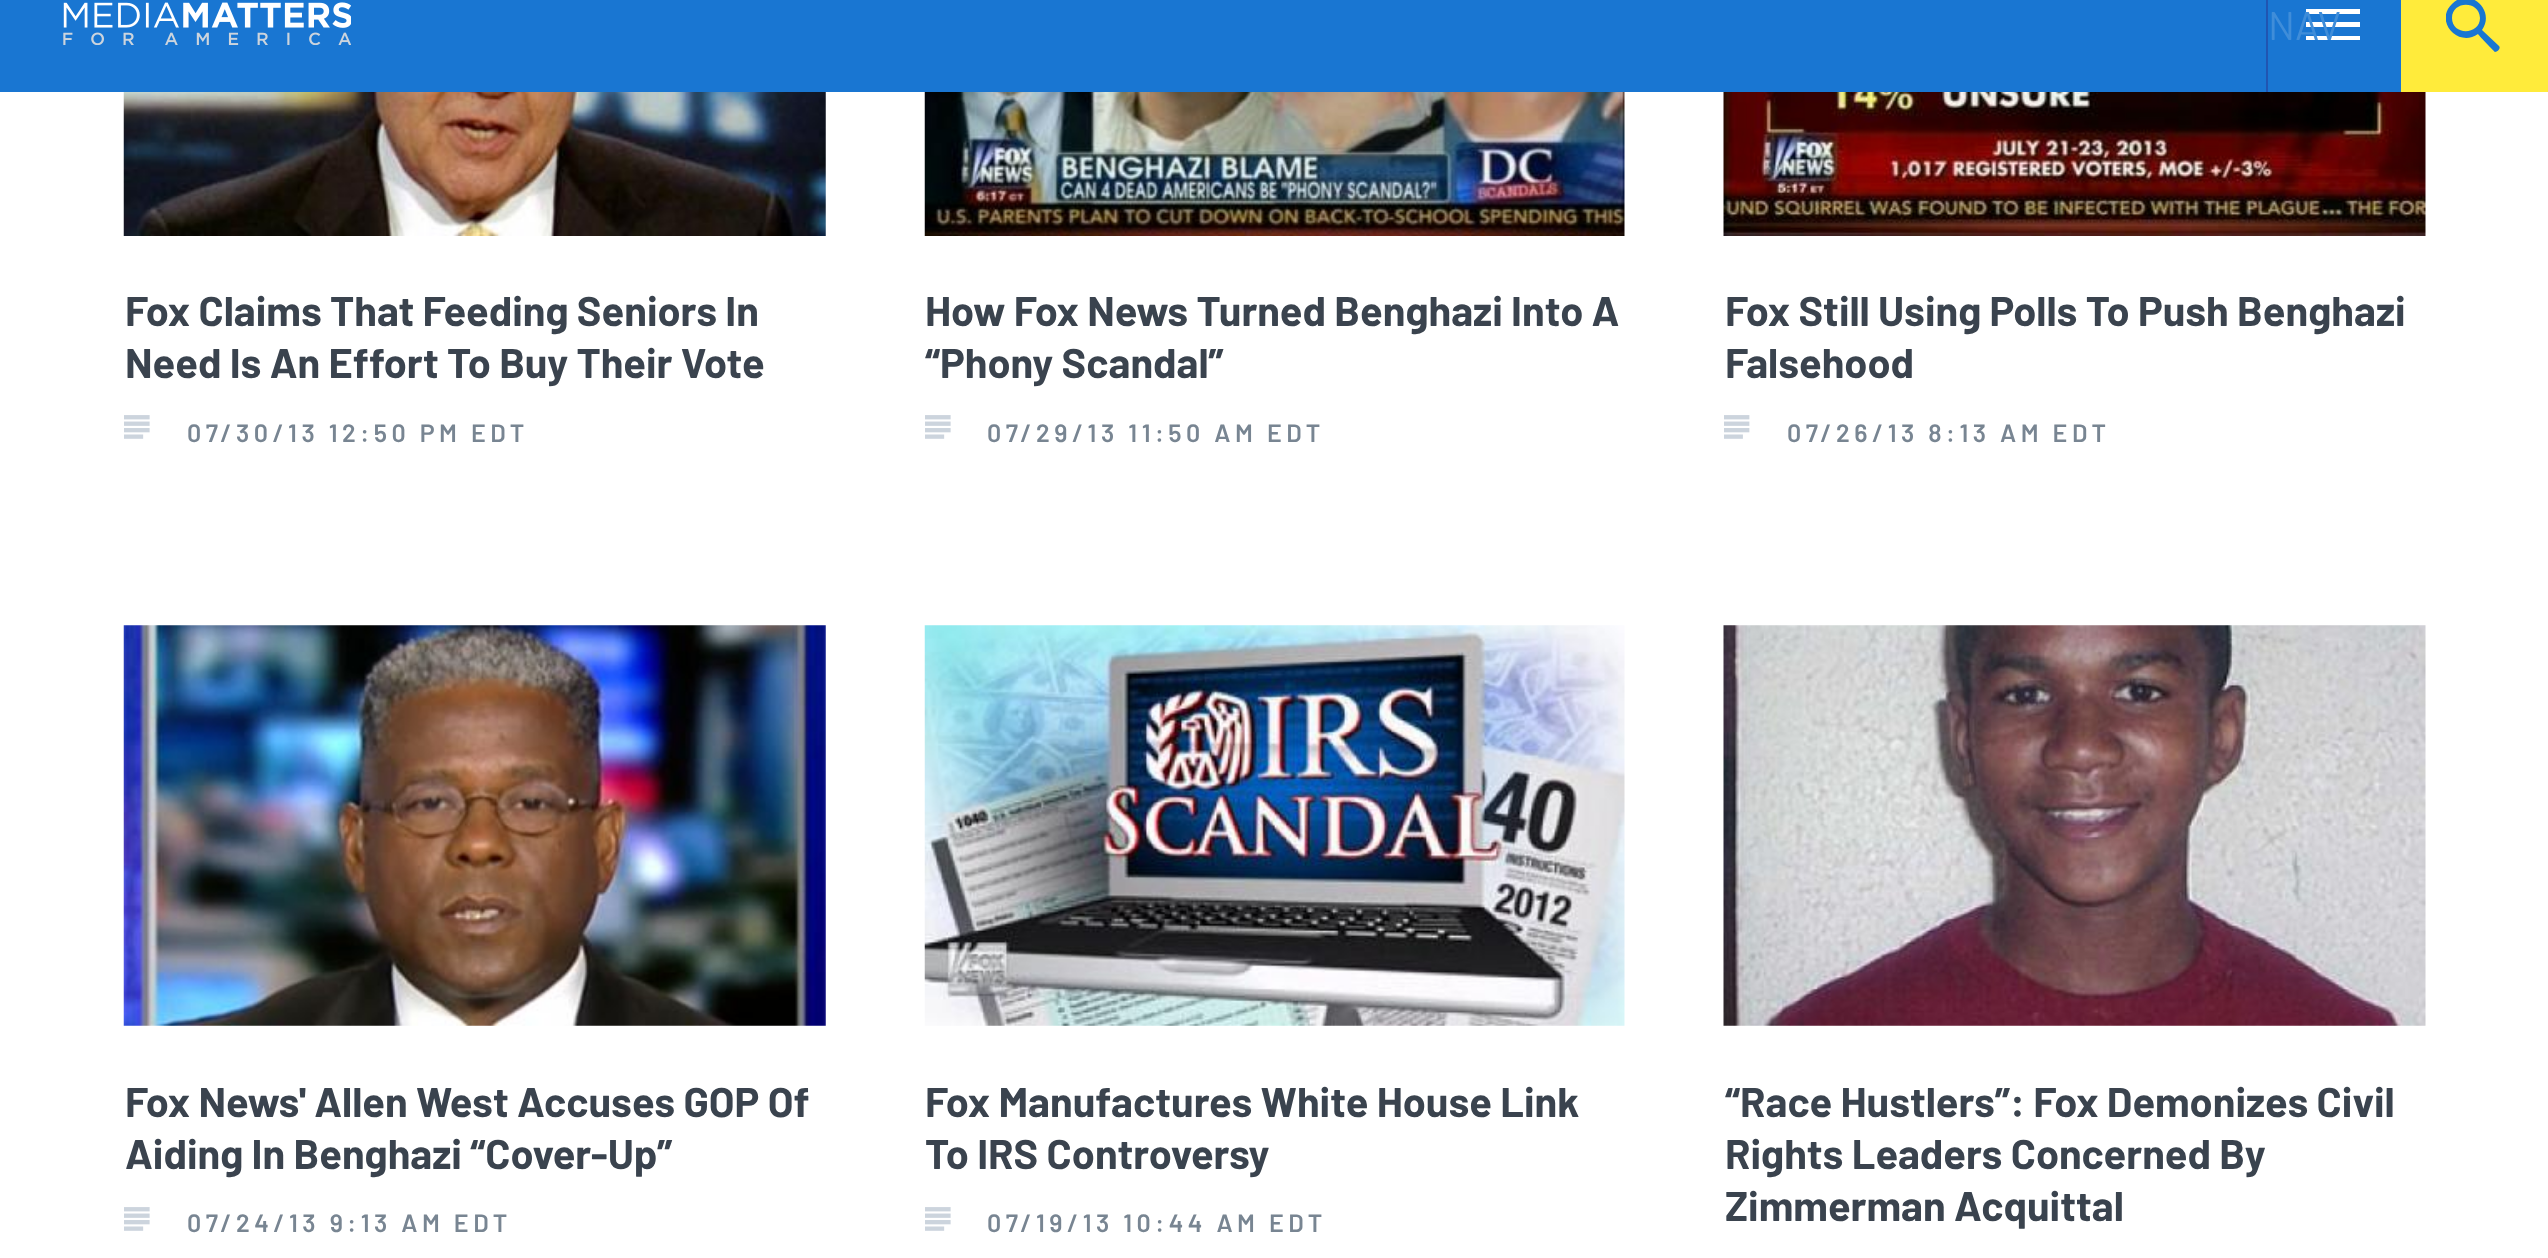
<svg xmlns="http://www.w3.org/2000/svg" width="2548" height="1258">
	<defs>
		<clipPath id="clip1"><rect x="2446" y="0" width="56" height="52" /></clipPath>
	</defs>
	<rect width="100%" height="100%" fill="#FFFFFF" />
	<rect x="0" y="0" width="2401" height="92" fill="#1976D2" />
	<image x="63" y="2" width="288" height="43" href="assets/img1.png" />
	<path d="M2306 9H2360V14H2306ZM2306 22H2360V27H2306ZM2306 36H2360V40H2306Z" fill="#FFFFFF" fill-rule="evenodd" />
	<rect x="2266" y="0" width="2" height="92" fill="#2055B2" />
	<text x="2268" y="40" font-family="Barlow" font-size="40" fill="#3F8DD9">NAV</text>
	<rect x="2401" y="0" width="147" height="92" fill="#FFEB3B" />
	<g clip-path="url(#clip1)">
		<path d="M2452 18C2452 1 2479 0 2480 18C2480 35 2452 36 2452 18M2499 46L2482 30C2496 10 2469-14 2452 4C2434 21 2458 48 2478 34C2480 37 2494 51 2495 52C2498 52 2501 48 2499 46" fill="#1976D2" fill-rule="evenodd" />
	</g>
	<image x="123" y="92" width="703" height="144" href="assets/img2.png" />
	<g font-family="Barlow" font-size="41.5" font-weight="700" fill="#3A434E">
		<text x="125" y="326">Fox Claims That Feeding Seniors In</text>
		<text x="125" y="378">Need Is An Effort To Buy Their Vote</text>
	</g>
	<image x="124" y="415" width="26" height="24" href="assets/img3.png" />
	<text x="187" y="442" font-family="Barlow" font-size="25" font-weight="600" letter-spacing="4.5" fill="#788592">07/30/13 12:50 PM EDT</text>
	<image x="924" y="92" width="701" height="144" href="assets/img4.png" />
	<g font-family="Barlow" font-size="41.5" font-weight="700" fill="#3A434E">
		<text x="925" y="326">How Fox News Turned Benghazi Into A</text>
		<text x="925" y="378">“Phony Scandal”</text>
	</g>
	<image x="925" y="415" width="26" height="24" href="assets/img3.png" />
	<text x="987" y="442" font-family="Barlow" font-size="25" font-weight="600" letter-spacing="4.5" fill="#788592">07/29/13 11:50 AM EDT</text>
	<image x="1723" y="92" width="703" height="144" href="assets/img5.png" />
	<g font-family="Barlow" font-size="41.5" font-weight="700" fill="#3A434E">
		<text x="1725" y="326">Fox Still Using Polls To Push Benghazi</text>
		<text x="1725" y="378">Falsehood</text>
	</g>
	<image x="1724" y="415" width="26" height="24" href="assets/img6.png" />
	<text x="1787" y="442" font-family="Barlow" font-size="25" font-weight="600" letter-spacing="4.5" fill="#788592">07/26/13 8:13 AM EDT</text>
	<image x="123" y="625" width="703" height="401" href="assets/img7.png" />
	<g font-family="Barlow" font-size="41.5" font-weight="700" fill="#3A434E">
		<text x="125" y="1117">Fox News' Allen West Accuses GOP Of</text>
		<text x="125" y="1169">Aiding In Benghazi “Cover-Up”</text>
	</g>
	<image x="124" y="1207" width="26" height="24" href="assets/img3.png" />
	<text x="187" y="1232" font-family="Barlow" font-size="25" font-weight="600" letter-spacing="4.5" fill="#788592">07/24/13 9:13 AM EDT</text>
	<image x="924" y="625" width="701" height="401" href="assets/img8.png" />
	<g font-family="Barlow" font-size="41.5" font-weight="700" fill="#3A434E">
		<text x="925" y="1117">Fox Manufactures White House Link</text>
		<text x="925" y="1169">To IRS Controversy</text>
	</g>
	<image x="925" y="1207" width="26" height="24" href="assets/img3.png" />
	<text x="987" y="1232" font-family="Barlow" font-size="25" font-weight="600" letter-spacing="4.5" fill="#788592">07/19/13 10:44 AM EDT</text>
	<image x="1723" y="625" width="703" height="401" href="assets/img9.png" />
	<g font-family="Barlow" font-size="41.5" font-weight="700" fill="#3A434E">
		<text x="1725" y="1117">“Race Hustlers”: Fox Demonizes Civil</text>
		<text x="1725" y="1169">Rights Leaders Concerned By</text>
		<text x="1725" y="1221">Zimmerman Acquittal</text>
	</g>
</svg>
